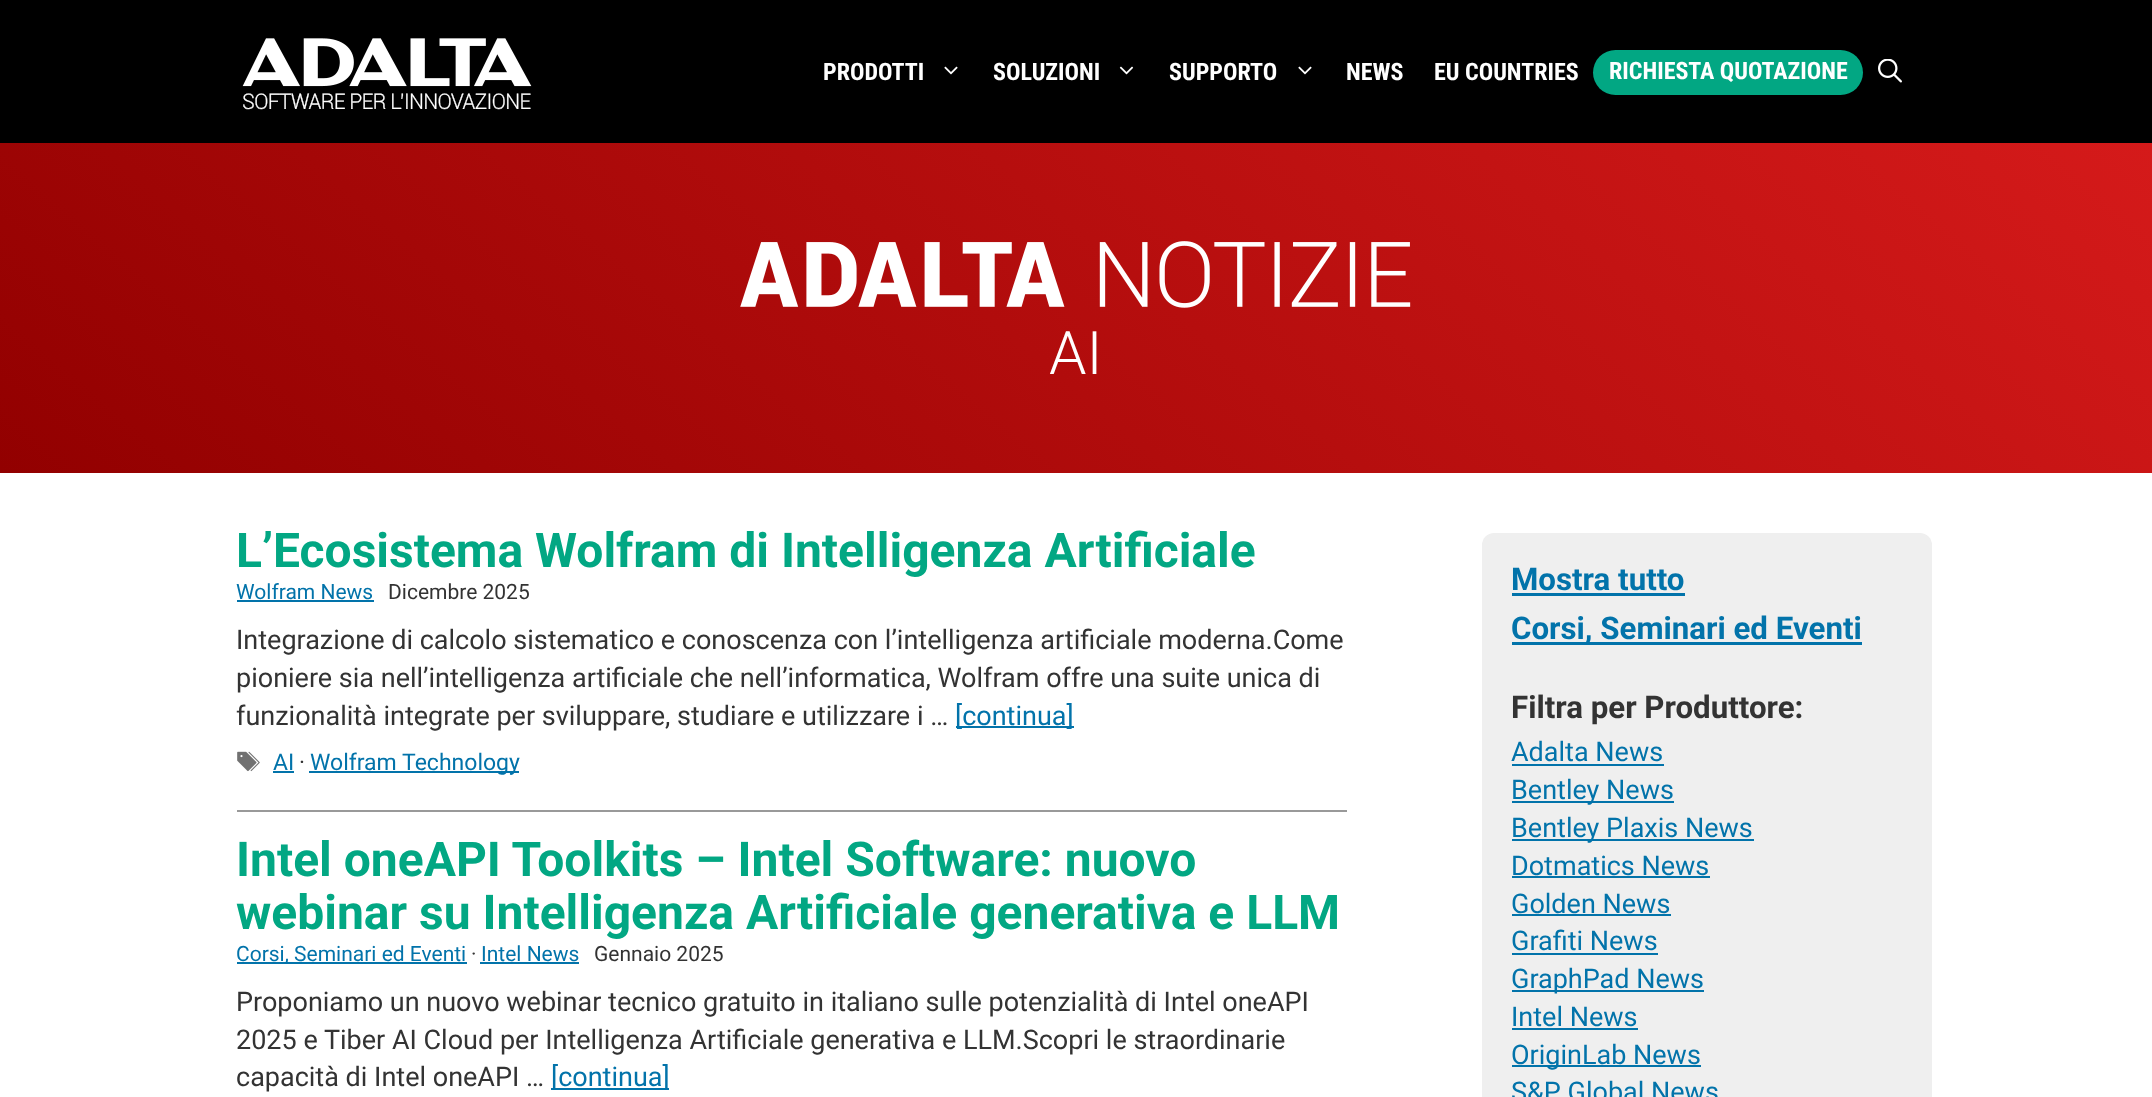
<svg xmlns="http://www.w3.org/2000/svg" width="2152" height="1097">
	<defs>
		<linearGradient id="g1" gradientUnits="userSpaceOnUse" x1="1602" y1="-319" x2="550" y2="934"><stop offset="0" stop-color="#D51A1A" /><stop offset="1" stop-color="#920000" /></linearGradient>
	</defs>
	<rect width="100%" height="100%" fill="#FFFFFF" />
	<rect x="0" y="0" width="2152" height="143" fill="#000000" />
	<image x="242" y="38" width="290" height="49" href="assets/img1.png" />
	<image x="243" y="93" width="288" height="17" href="assets/img2.png" />
	<text x="823" y="80" font-family="Roboto Condensed" font-size="24" font-weight="700" fill="#FFFFFF">PRODOTTI</text>
	<image x="944" y="66" width="14" height="9" href="assets/img3.png" />
	<text x="993" y="80" font-family="Roboto Condensed" font-size="24" font-weight="700" fill="#FFFFFF">SOLUZIONI</text>
	<image x="1119" y="66" width="15" height="9" href="assets/img4.png" />
	<text x="1169" y="80" font-family="Roboto Condensed" font-size="24" font-weight="700" fill="#FFFFFF">SUPPORTO</text>
	<image x="1298" y="66" width="14" height="9" href="assets/img3.png" />
	<g font-family="Roboto Condensed" font-size="24" font-weight="700" fill="#FFFFFF">
		<text x="1346" y="80">NEWS</text>
		<text x="1434" y="80">EU COUNTRIES</text>
	</g>
	<rect x="1593" y="50" width="270" height="45" rx="22.5" fill="#02A783" />
	<text x="1609" y="79" font-family="Roboto Condensed" font-size="24" font-weight="700" fill="#FFFFFF">RICHIESTA QUOTAZIONE</text>
	<image x="1878" y="59" width="24" height="24" href="assets/img5.png" />
	<rect x="0" y="143" width="2152" height="330" fill="url(#g1)" />
	<image x="740" y="241" width="671" height="67" href="assets/img6.png" />
	<text x="1049" y="374" font-family="Roboto" font-size="60" font-weight="300" fill="#FFFFFF">AI</text>
	<text x="236" y="567" font-family="Roboto" font-size="48" font-weight="700" fill="#02A783">L’Ecosistema Wolfram di Intelligenza Artificiale</text>
	<text x="236" y="599" font-family="Roboto" font-size="21" fill="#0273AA">Wolfram News</text>
	<rect x="237" y="600" width="137" height="2" fill="#0273AA" />
	<text x="388" y="599" font-family="Roboto" font-size="21" fill="#333333">Dicembre 2025</text>
	<g font-family="Roboto" font-size="27" fill="#333333">
		<text x="236" y="649">Integrazione di calcolo sistematico e conoscenza con l’intelligenza artificiale moderna.Come</text>
		<text x="236" y="687">pioniere sia nell’intelligenza artificiale che nell’informatica, Wolfram offre una suite unica di</text>
		<text x="236" y="725">funzionalità integrate per sviluppare, studiare e utilizzare i …</text>
	</g>
	<rect x="956" y="726" width="118" height="2" fill="#0273AA" />
	<text x="955" y="725" font-family="Roboto" font-size="27" fill="#0273AA">[continua]</text>
	<image x="237" y="751" width="23" height="21" href="assets/img7.png" />
	<text x="273" y="770" font-family="Roboto" font-size="23" fill="#0273AA">AI</text>
	<rect x="273" y="771" width="21" height="2" fill="#0273AA" />
	<text x="299" y="770" font-family="Roboto" font-size="23" fill="#333333">·</text>
	<rect x="309" y="771" width="210" height="2" fill="#0273AA" />
	<text x="310" y="770" font-family="Roboto" font-size="23" fill="#0273AA">Wolfram Technology</text>
	<rect x="237" y="810" width="1110" height="2" fill="#999999" />
	<g font-family="Roboto" font-size="48" font-weight="700" fill="#02A783">
		<text x="236" y="876">Intel oneAPI Toolkits – Intel Software: nuovo</text>
		<text x="236" y="929">webinar su Intelligenza Artificiale generativa e LLM</text>
	</g>
	<rect x="237" y="962" width="230" height="2" fill="#0273AA" />
	<text x="236" y="961" font-family="Roboto" font-size="21" fill="#0273AA">Corsi, Seminari ed Eventi</text>
	<text x="471" y="961" font-family="Roboto" font-size="21" fill="#333333">·</text>
	<text x="481" y="961" font-family="Roboto" font-size="21" fill="#0273AA">Intel News</text>
	<rect x="480" y="962" width="99" height="2" fill="#0273AA" />
	<text x="594" y="961" font-family="Roboto" font-size="21" fill="#333333">Gennaio 2025</text>
	<g font-family="Roboto" font-size="27" fill="#333333">
		<text x="236" y="1011">Proponiamo un nuovo webinar tecnico gratuito in italiano sulle potenzialità di Intel oneAPI</text>
		<text x="236" y="1049">2025 e Tiber AI Cloud per Intelligenza Artificiale generativa e LLM.Scopri le straordinarie</text>
		<text x="236" y="1086">capacità di Intel oneAPI …</text>
	</g>
	<rect x="551" y="1088" width="118" height="2" fill="#0273AA" />
	<text x="551" y="1086" font-family="Roboto" font-size="27" fill="#0273AA">[continua]</text>
	<rect x="1482" y="533" width="450" height="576" rx="12" fill="#EFEFEF" />
	<text x="1511" y="590" font-family="Roboto" font-size="31.25" font-weight="700" fill="#0273AA">Mostra tutto</text>
	<rect x="1512" y="593" width="173" height="3" fill="#0273AA" />
	<rect x="1512" y="642" width="350" height="3" fill="#0273AA" />
	<text x="1511" y="639" font-family="Roboto" font-size="31.25" font-weight="700" fill="#0273AA">Corsi, Seminari ed Eventi</text>
	<text x="1511" y="718" font-family="Roboto" font-size="31.25" font-weight="700" fill="#333333">Filtra per Produttore:</text>
	<text x="1511" y="761" font-family="Roboto" font-size="27" fill="#0273AA">Adalta News</text>
	<rect x="1512" y="764" width="152" height="2" fill="#0273AA" />
	<rect x="1512" y="801" width="162" height="2" fill="#0273AA" />
	<text x="1511" y="799" font-family="Roboto" font-size="27" fill="#0273AA">Bentley News</text>
	<rect x="1512" y="839" width="242" height="2" fill="#0273AA" />
	<g font-family="Roboto" font-size="27" fill="#0273AA">
		<text x="1511" y="837">Bentley Plaxis News</text>
		<text x="1511" y="875">Dotmatics News</text>
	</g>
	<rect x="1512" y="876" width="198" height="2" fill="#0273AA" />
	<text x="1511" y="913" font-family="Roboto" font-size="27" fill="#0273AA">Golden News</text>
	<rect x="1512" y="914" width="159" height="2" fill="#0273AA" />
	<text x="1511" y="950" font-family="Roboto" font-size="27" fill="#0273AA">Grafiti News</text>
	<rect x="1512" y="953" width="146" height="2" fill="#0273AA" />
	<rect x="1512" y="990" width="192" height="2" fill="#0273AA" />
	<g font-family="Roboto" font-size="27" fill="#0273AA">
		<text x="1511" y="988">GraphPad News</text>
		<text x="1511" y="1026">Intel News</text>
	</g>
	<rect x="1512" y="1028" width="126" height="2" fill="#0273AA" />
	<rect x="1512" y="1065" width="189" height="2" fill="#0273AA" />
	<g font-family="Roboto" font-size="27" fill="#0273AA">
		<text x="1511" y="1064">OriginLab News</text>
		<text x="1511" y="1101">S&amp;P Global News</text>
	</g>
</svg>
